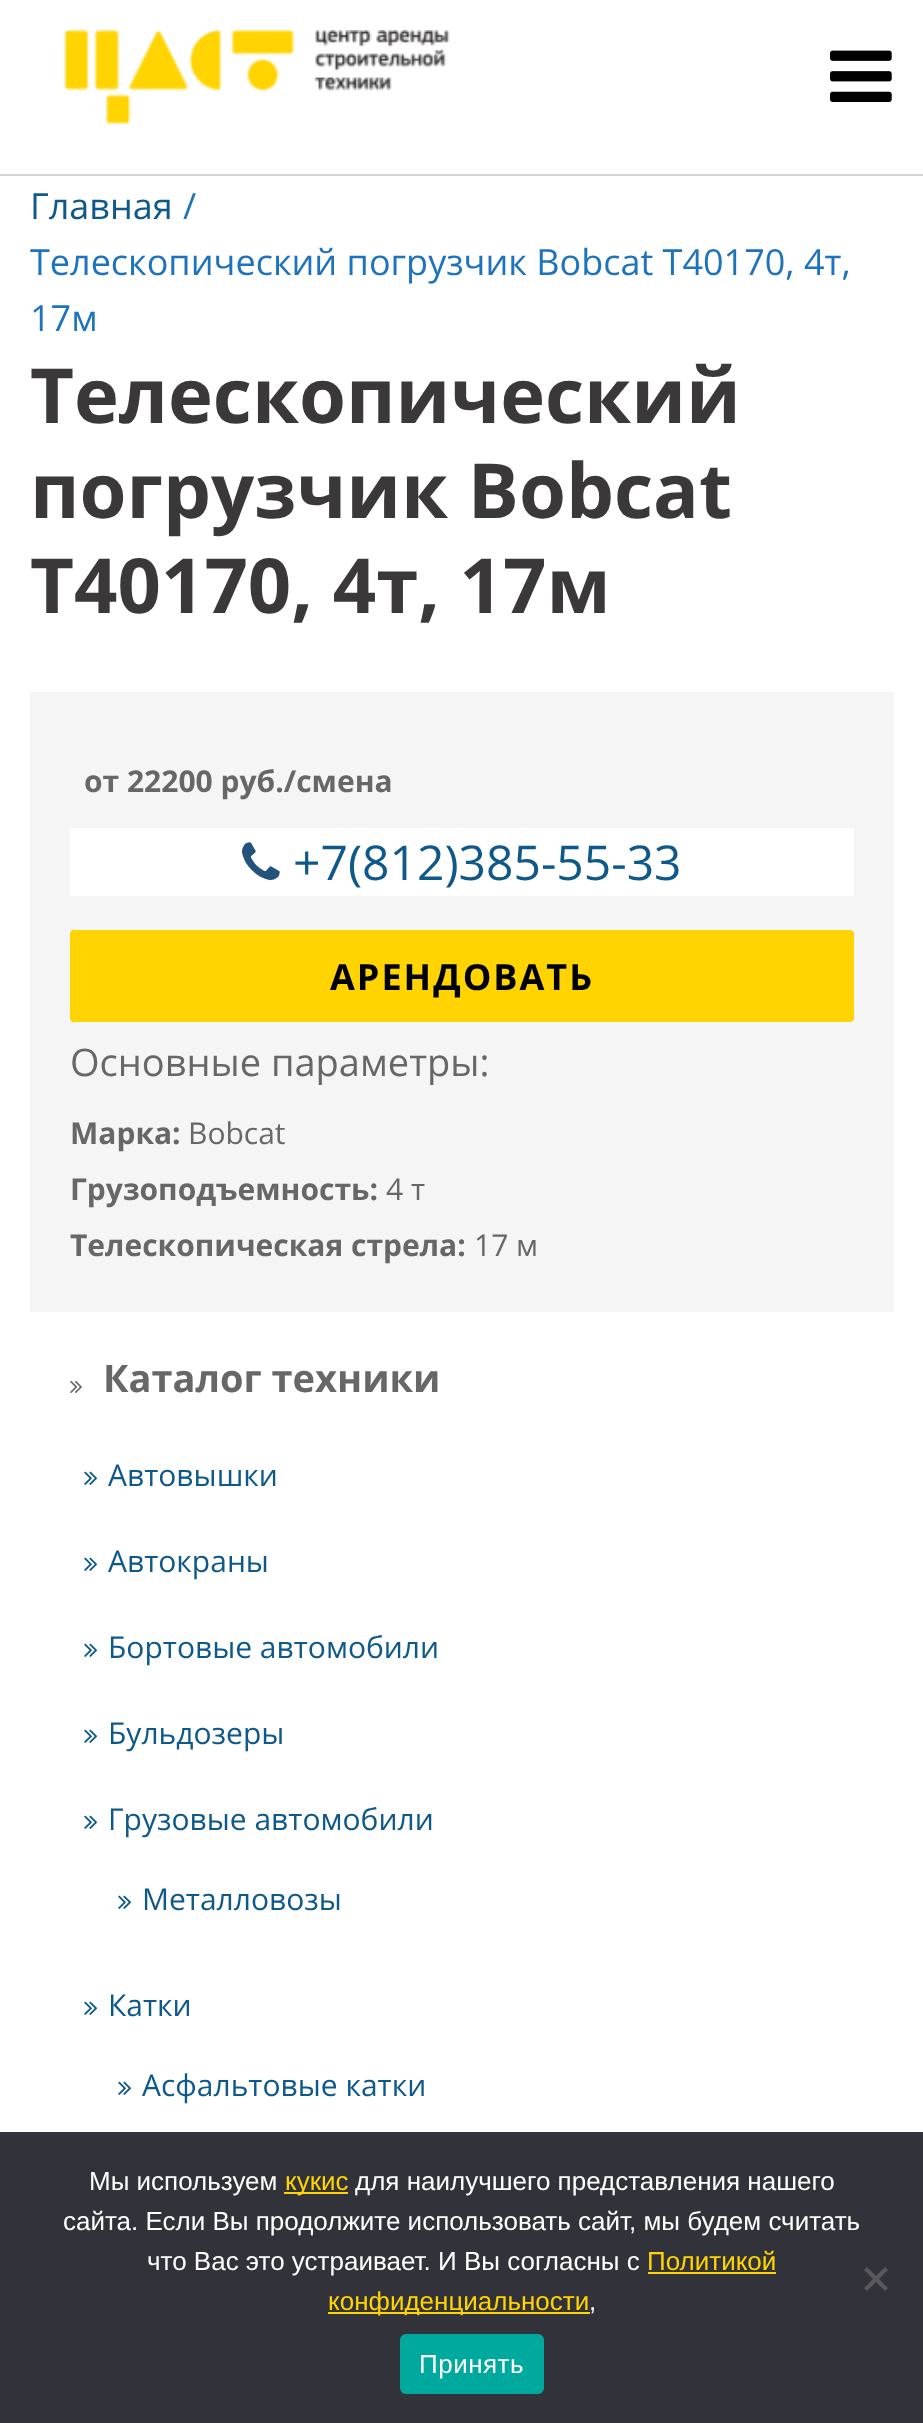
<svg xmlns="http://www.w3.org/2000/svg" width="923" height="2423">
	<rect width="100%" height="100%" fill="#FFFFFF" />
	<rect x="0" y="174" width="923" height="2" fill="#D4D4D4" />
	<image x="63" y="30" width="387" height="94" href="assets/img1.png" />
	<image x="830" y="50" width="62" height="52" href="assets/img2.png" />
	<text x="30" y="219" font-family="Open Sans" font-size="36" fill="#0E598A">Главная</text>
	<g font-family="Open Sans" font-size="36" fill="#1E73BE">
		<text x="183" y="219">/</text>
		<text x="30" y="275">Телескопический погрузчик Bobcat T40170, 4т,</text>
		<text x="30" y="331">17м</text>
	</g>
	<g font-family="Open Sans" font-size="76" font-weight="700" fill="#3A3838">
		<text x="30" y="423">Телескопический</text>
		<text x="30" y="518">погрузчик Bobcat</text>
		<text x="30" y="613">T40170, 4т, 17м</text>
	</g>
	<rect x="30" y="692" width="864" height="620" fill="#F5F5F5" />
	<text x="84" y="792" font-family="Open Sans" font-size="30" font-weight="700" fill="#676767">от 22200 руб./смена</text>
	<rect x="70" y="828" width="784" height="68" fill="#FFFFFF" />
	<image x="242" y="842" width="38" height="38" href="assets/img3.png" />
	<text x="293" y="880" font-family="Open Sans" font-size="48" fill="#0E598A">+7(812)385-55-33</text>
	<rect x="70" y="930" width="784" height="92" rx="4" fill="#FFD400" />
	<text x="330" y="990" font-family="Open Sans" font-size="36" font-weight="700" letter-spacing="2" fill="#000000">АРЕНДОВАТЬ</text>
	<text x="70" y="1076" font-family="Open Sans" font-size="38" fill="#676767">Основные параметры:</text>
	<text x="70" y="1144" font-family="Open Sans" font-size="30" font-weight="700" fill="#676767">Марка:</text>
	<text x="188" y="1144" font-family="Open Sans" font-size="30" fill="#676767">Bobcat</text>
	<text x="70" y="1200" font-family="Open Sans" font-size="30" font-weight="700" fill="#676767">Грузоподъемность:</text>
	<text x="386" y="1200" font-family="Open Sans" font-size="30" fill="#676767">4 т</text>
	<text x="70" y="1256" font-family="Open Sans" font-size="30" font-weight="700" fill="#676767">Телескопическая стрела:</text>
	<text x="474" y="1256" font-family="Open Sans" font-size="30" fill="#676767">17 м</text>
	<image x="70" y="1380" width="12" height="13" href="assets/img4.png" />
	<text x="103" y="1392" font-family="Open Sans" font-size="38" font-weight="700" fill="#676767">Каталог техники</text>
	<image x="84" y="1471" width="14" height="14" href="assets/img5.png" />
	<text x="108" y="1486" font-family="Open Sans" font-size="30" fill="#0E598A">Автовышки</text>
	<image x="84" y="1557" width="14" height="14" href="assets/img5.png" />
	<text x="108" y="1572" font-family="Open Sans" font-size="30" fill="#0E598A">Автокраны</text>
	<image x="84" y="1643" width="14" height="14" href="assets/img5.png" />
	<text x="108" y="1658" font-family="Open Sans" font-size="30" fill="#0E598A">Бортовые автомобили</text>
	<image x="84" y="1729" width="14" height="14" href="assets/img5.png" />
	<text x="108" y="1744" font-family="Open Sans" font-size="30" fill="#0E598A">Бульдозеры</text>
	<image x="84" y="1815" width="14" height="14" href="assets/img5.png" />
	<text x="108" y="1830" font-family="Open Sans" font-size="30" fill="#0E598A">Грузовые автомобили</text>
	<image x="118" y="1895" width="14" height="14" href="assets/img5.png" />
	<text x="142" y="1910" font-family="Open Sans" font-size="30" fill="#0E598A">Металловозы</text>
	<image x="84" y="2001" width="14" height="14" href="assets/img5.png" />
	<text x="108" y="2016" font-family="Open Sans" font-size="30" fill="#0E598A">Катки</text>
	<image x="118" y="2081" width="14" height="14" href="assets/img5.png" />
	<text x="142" y="2096" font-family="Open Sans" font-size="30" fill="#0E598A">Асфальтовые катки</text>
	<rect x="0" y="2132" width="923" height="291" fill="#32323A" />
	<text x="89" y="2190" font-family="Liberation Sans" font-size="26" fill="#FFFFFF">Мы используем</text>
	<rect x="284" y="2192" width="64" height="2" fill="#FFD400" />
	<text x="285" y="2190" font-family="Liberation Sans" font-size="26" fill="#FFD400">кукиc</text>
	<g font-family="Liberation Sans" font-size="26" fill="#FFFFFF">
		<text x="355" y="2190">для наилучшего представления нашего</text>
		<text x="63" y="2230">сайта. Если Вы продолжите использовать сайт, мы будем считать</text>
		<text x="147" y="2270">что Вас это устраивает. И Вы согласны с</text>
	</g>
	<text x="647" y="2270" font-family="Liberation Sans" font-size="26" fill="#FFD400">Политикой</text>
	<rect x="648" y="2272" width="128" height="2" fill="#FFD400" />
	<rect x="328" y="2312" width="262" height="2" fill="#FFD400" />
	<text x="328" y="2310" font-family="Liberation Sans" font-size="26" fill="#FFD400">конфиденциальности</text>
	<text x="589" y="2310" font-family="Liberation Sans" font-size="26" fill="#FFFFFF">,</text>
	<path d="M885 2267L888 2270L867 2291L864 2288Z" fill="#59595D" />
	<path d="M864 2270L867 2267L888 2288L885 2291Z" fill="#59595D" />
	<rect x="400" y="2334" width="144" height="60" rx="6" fill="#00A99D" />
	<text x="419" y="2373" font-family="Liberation Sans" font-size="26" letter-spacing="0.5" fill="#FFFFFF">Принять</text>
</svg>
